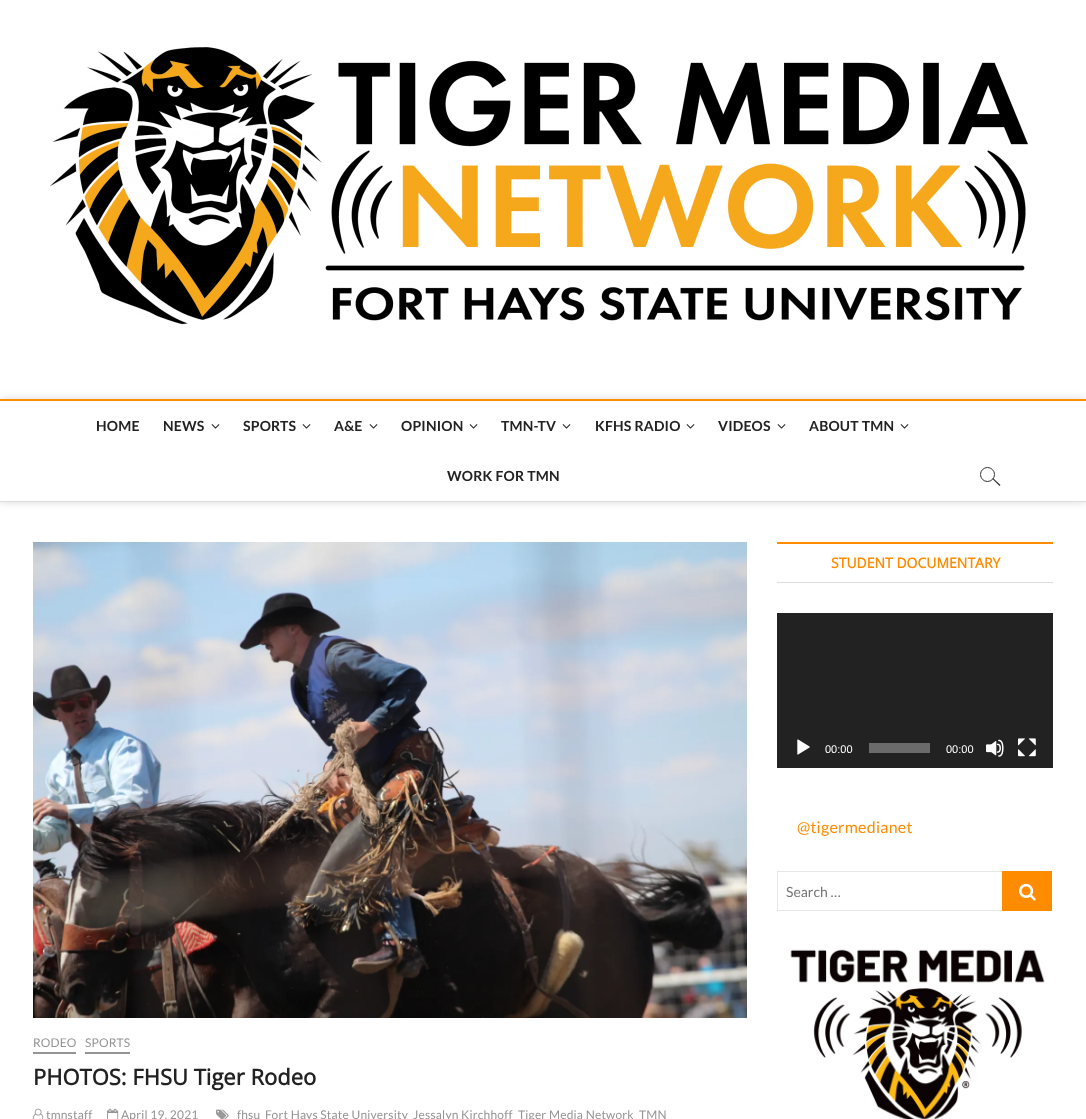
<svg xmlns="http://www.w3.org/2000/svg" width="1086" height="1119">
	<defs>
		<clipPath id="clip1"><path d="M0 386H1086V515H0ZM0 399H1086V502H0Z" clip-rule="evenodd" /></clipPath>
	</defs>
	<rect width="100%" height="100%" fill="#FFFFFF" />
	<image x="50" y="47" width="978" height="278" href="assets/img1.png" />
	<g clip-path="url(#clip1)">
		<rect x="0" y="399" width="1086" height="103" fill="#000000" fill-opacity="0.15" filter="blur(4px)" />
	</g>
	<rect x="0" y="399" width="1086" height="2" fill="#FF8C00" />
	<rect x="0" y="501" width="1086" height="1" fill="#DDDDDD" />
	<g font-family="Lato" font-size="14" font-weight="700" letter-spacing="0.2" fill="#222222">
		<text x="96" y="431">HOME</text>
		<text x="163" y="431">NEWS</text>
	</g>
	<image x="211" y="424" width="9" height="5" href="assets/img2.png" />
	<text x="243" y="431" font-family="Lato" font-size="14" font-weight="700" letter-spacing="0.2" fill="#222222">SPORTS</text>
	<image x="302" y="424" width="9" height="5" href="assets/img2.png" />
	<text x="334" y="431" font-family="Lato" font-size="14" font-weight="700" letter-spacing="0.2" fill="#222222">A&amp;E</text>
	<image x="369" y="424" width="9" height="5" href="assets/img2.png" />
	<text x="401" y="431" font-family="Lato" font-size="14" font-weight="700" letter-spacing="0.2" fill="#222222">OPINION</text>
	<image x="469" y="424" width="9" height="5" href="assets/img2.png" />
	<text x="501" y="431" font-family="Lato" font-size="14" font-weight="700" letter-spacing="0.2" fill="#222222">TMN-TV</text>
	<image x="562" y="424" width="9" height="5" href="assets/img2.png" />
	<text x="595" y="431" font-family="Lato" font-size="14" font-weight="700" letter-spacing="0.2" fill="#222222">KFHS RADIO</text>
	<image x="686" y="424" width="9" height="5" href="assets/img2.png" />
	<text x="718" y="431" font-family="Lato" font-size="14" font-weight="700" letter-spacing="0.2" fill="#222222">VIDEOS</text>
	<image x="777" y="424" width="9" height="5" href="assets/img2.png" />
	<text x="809" y="431" font-family="Lato" font-size="14" font-weight="700" letter-spacing="0.2" fill="#222222">ABOUT TMN</text>
	<image x="900" y="424" width="9" height="5" href="assets/img2.png" />
	<text x="447" y="481" font-family="Lato" font-size="14" font-weight="700" letter-spacing="0.2" fill="#222222">WORK FOR TMN</text>
	<circle cx="987.5" cy="474.5" r="7" fill="none" stroke="#333333" />
	<path d="M992.5 479L993 478L1000.5 485L999.5 486Z" fill="#333333" />
	<rect x="777" y="542" width="276" height="2" fill="#FF8C00" />
	<rect x="777" y="582" width="276" height="1" fill="#DDDDDD" />
	<text x="831" y="568" font-family="Open Sans" font-size="14" font-weight="700" fill="#FF8C00">STUDENT DOCUMENTARY</text>
	<rect x="777" y="613" width="276" height="155" fill="#222222" />
	<image x="797" y="739" width="13" height="16" href="assets/img3.png" />
	<text x="825" y="753" font-family="Liberation Sans" font-size="11" fill="#FFFFFF">00:00</text>
	<rect x="869" y="743" width="61" height="10" fill="#6B6B6B" />
	<text x="946" y="753" font-family="Liberation Sans" font-size="11" fill="#FFFFFF">00:00</text>
	<image x="986" y="739" width="18" height="18" href="assets/img4.png" />
	<image x="1018" y="738" width="18" height="19" href="assets/img5.png" />
	<text x="797" y="833" font-family="Lato" font-size="16" letter-spacing="0.25" fill="#FF8C00">@tigermedianet</text>
	<rect x="777.5" y="871.5" width="225" height="39" fill="none" stroke="#E6E6E6" />
	<text x="786" y="897" font-family="Lato" font-size="14" fill="#757575">Search …</text>
	<rect x="1002" y="871" width="50" height="40" fill="#FF8C00" />
	<image x="1019" y="883" width="17" height="18" href="assets/img6.png" />
	<image x="790" y="949" width="255" height="170" href="assets/img7.png" />
	<image x="33" y="542" width="714" height="476" href="assets/img8.png" />
	<text x="33" y="1047" font-family="Lato" font-size="12" letter-spacing="0.2" fill="#949494">RODEO</text>
	<rect x="33" y="1052" width="43" height="2" fill="#949494" />
	<text x="85" y="1047" font-family="Lato" font-size="12" letter-spacing="0.2" fill="#949494">SPORTS</text>
	<rect x="85" y="1052" width="45" height="2" fill="#949494" />
	<text x="33" y="1085" font-family="Open Sans" font-size="22" font-weight="700" fill="#222222">PHOTOS: FHSU Tiger Rodeo</text>
	<image x="33" y="1108" width="11" height="11" href="assets/img9.png" />
	<text x="46" y="1119" font-family="Lato" font-size="12" letter-spacing="0.2" fill="#949494">tmnstaff</text>
	<image x="107" y="1108" width="12" height="11" href="assets/img10.png" />
	<text x="121" y="1119" font-family="Lato" font-size="12" letter-spacing="0.2" fill="#949494">April 19, 2021</text>
	<image x="216" y="1109" width="13" height="10" href="assets/img11.png" />
	<g font-family="Lato" font-size="12" letter-spacing="0.2" fill="#949494">
		<text x="237" y="1119">fhsu</text>
		<text x="265" y="1119">Fort Hays State University</text>
		<text x="413" y="1119">Jessalyn Kirchhoff</text>
		<text x="518" y="1119">Tiger Media Network</text>
		<text x="639" y="1119">TMN</text>
	</g>
</svg>
